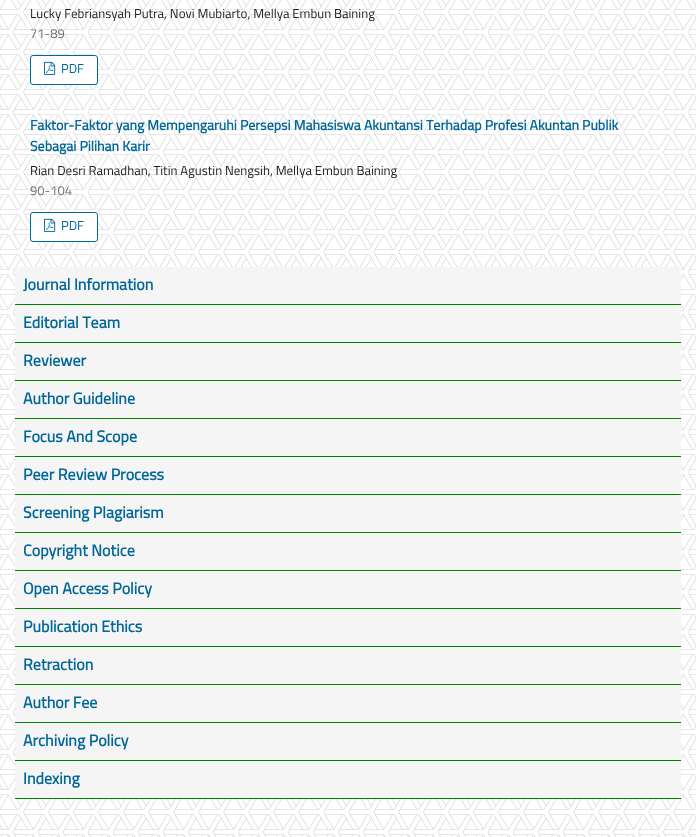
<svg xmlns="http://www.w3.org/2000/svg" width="696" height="837">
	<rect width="100%" height="100%" fill="#FFFFFF" />
	<image x="0" y="0" width="696" height="837" href="assets/img1.png" />
	<text x="30" y="18" font-family="Sunflower" font-size="13" font-weight="300" fill="#202020">Lucky Febriansyah Putra, Novi Mubiarto, Mellya Embun Baining</text>
	<text x="30" y="38" font-family="Sunflower" font-size="13" font-weight="300" fill="#727272">71-89</text>
	<rect x="30.5" y="55.5" width="67" height="29" rx="2.5" fill="#FFFFFF" stroke="#006798" />
	<image x="44" y="61" width="12" height="14" href="assets/img2.png" />
	<text x="61" y="73" font-family="Sunflower" font-size="13" font-weight="300" fill="#006798">PDF</text>
	<g font-family="Sunflower" font-size="14" font-weight="700" fill="#006798">
		<text x="30" y="130">Faktor-Faktor yang Mempengaruhi Persepsi Mahasiswa Akuntansi Terhadap Profesi Akuntan Publik</text>
		<text x="30" y="151">Sebagai Pilihan Karir</text>
	</g>
	<text x="30" y="175" font-family="Sunflower" font-size="13" font-weight="300" fill="#202020">Rian Desri Ramadhan, Titin Agustin Nengsih, Mellya Embun Baining</text>
	<text x="30" y="195" font-family="Sunflower" font-size="13" font-weight="300" fill="#727272">90-104</text>
	<rect x="30.5" y="212.5" width="67" height="29" rx="2.5" fill="#FFFFFF" stroke="#006798" />
	<image x="44" y="218" width="12" height="14" href="assets/img2.png" />
	<text x="61" y="230" font-family="Sunflower" font-size="13" font-weight="300" fill="#006798">PDF</text>
	<rect x="15" y="267" width="666" height="37" fill="#F5F5F5" />
	<rect x="15" y="304" width="666" height="1" fill="#008000" />
	<text x="23" y="290" font-family="Sunflower" font-size="16" font-weight="700" fill="#006798">Journal Information</text>
	<rect x="15" y="305" width="666" height="37" fill="#F5F5F5" />
	<rect x="15" y="342" width="666" height="1" fill="#008000" />
	<text x="23" y="328" font-family="Sunflower" font-size="16" font-weight="700" fill="#006798">Editorial Team</text>
	<rect x="15" y="343" width="666" height="37" fill="#F5F5F5" />
	<rect x="15" y="380" width="666" height="1" fill="#008000" />
	<text x="23" y="366" font-family="Sunflower" font-size="16" font-weight="700" fill="#006798">Reviewer</text>
	<rect x="15" y="381" width="666" height="37" fill="#F5F5F5" />
	<rect x="15" y="418" width="666" height="1" fill="#008000" />
	<text x="23" y="404" font-family="Sunflower" font-size="16" font-weight="700" fill="#006798">Author Guideline</text>
	<rect x="15" y="419" width="666" height="37" fill="#F5F5F5" />
	<rect x="15" y="456" width="666" height="1" fill="#008000" />
	<text x="23" y="442" font-family="Sunflower" font-size="16" font-weight="700" fill="#006798">Focus And Scope</text>
	<rect x="15" y="457" width="666" height="37" fill="#F5F5F5" />
	<rect x="15" y="494" width="666" height="1" fill="#008000" />
	<text x="23" y="480" font-family="Sunflower" font-size="16" font-weight="700" fill="#006798">Peer Review Process</text>
	<rect x="15" y="495" width="666" height="37" fill="#F5F5F5" />
	<rect x="15" y="532" width="666" height="1" fill="#008000" />
	<text x="23" y="518" font-family="Sunflower" font-size="16" font-weight="700" fill="#006798">Screening Plagiarism</text>
	<rect x="15" y="533" width="666" height="37" fill="#F5F5F5" />
	<rect x="15" y="570" width="666" height="1" fill="#008000" />
	<text x="23" y="556" font-family="Sunflower" font-size="16" font-weight="700" fill="#006798">Copyright Notice</text>
	<rect x="15" y="571" width="666" height="37" fill="#F5F5F5" />
	<rect x="15" y="608" width="666" height="1" fill="#008000" />
	<text x="23" y="594" font-family="Sunflower" font-size="16" font-weight="700" fill="#006798">Open Access Policy</text>
	<rect x="15" y="609" width="666" height="37" fill="#F5F5F5" />
	<rect x="15" y="646" width="666" height="1" fill="#008000" />
	<text x="23" y="632" font-family="Sunflower" font-size="16" font-weight="700" fill="#006798">Publication Ethics</text>
	<rect x="15" y="647" width="666" height="37" fill="#F5F5F5" />
	<rect x="15" y="684" width="666" height="1" fill="#008000" />
	<text x="23" y="670" font-family="Sunflower" font-size="16" font-weight="700" fill="#006798">Retraction</text>
	<rect x="15" y="685" width="666" height="37" fill="#F5F5F5" />
	<rect x="15" y="722" width="666" height="1" fill="#008000" />
	<text x="23" y="708" font-family="Sunflower" font-size="16" font-weight="700" fill="#006798">Author Fee</text>
	<rect x="15" y="723" width="666" height="37" fill="#F5F5F5" />
	<rect x="15" y="760" width="666" height="1" fill="#008000" />
	<text x="23" y="746" font-family="Sunflower" font-size="16" font-weight="700" fill="#006798">Archiving Policy</text>
	<rect x="15" y="761" width="666" height="37" fill="#F5F5F5" />
	<rect x="15" y="798" width="666" height="1" fill="#008000" />
	<text x="23" y="784" font-family="Sunflower" font-size="16" font-weight="700" fill="#006798">Indexing</text>
</svg>
